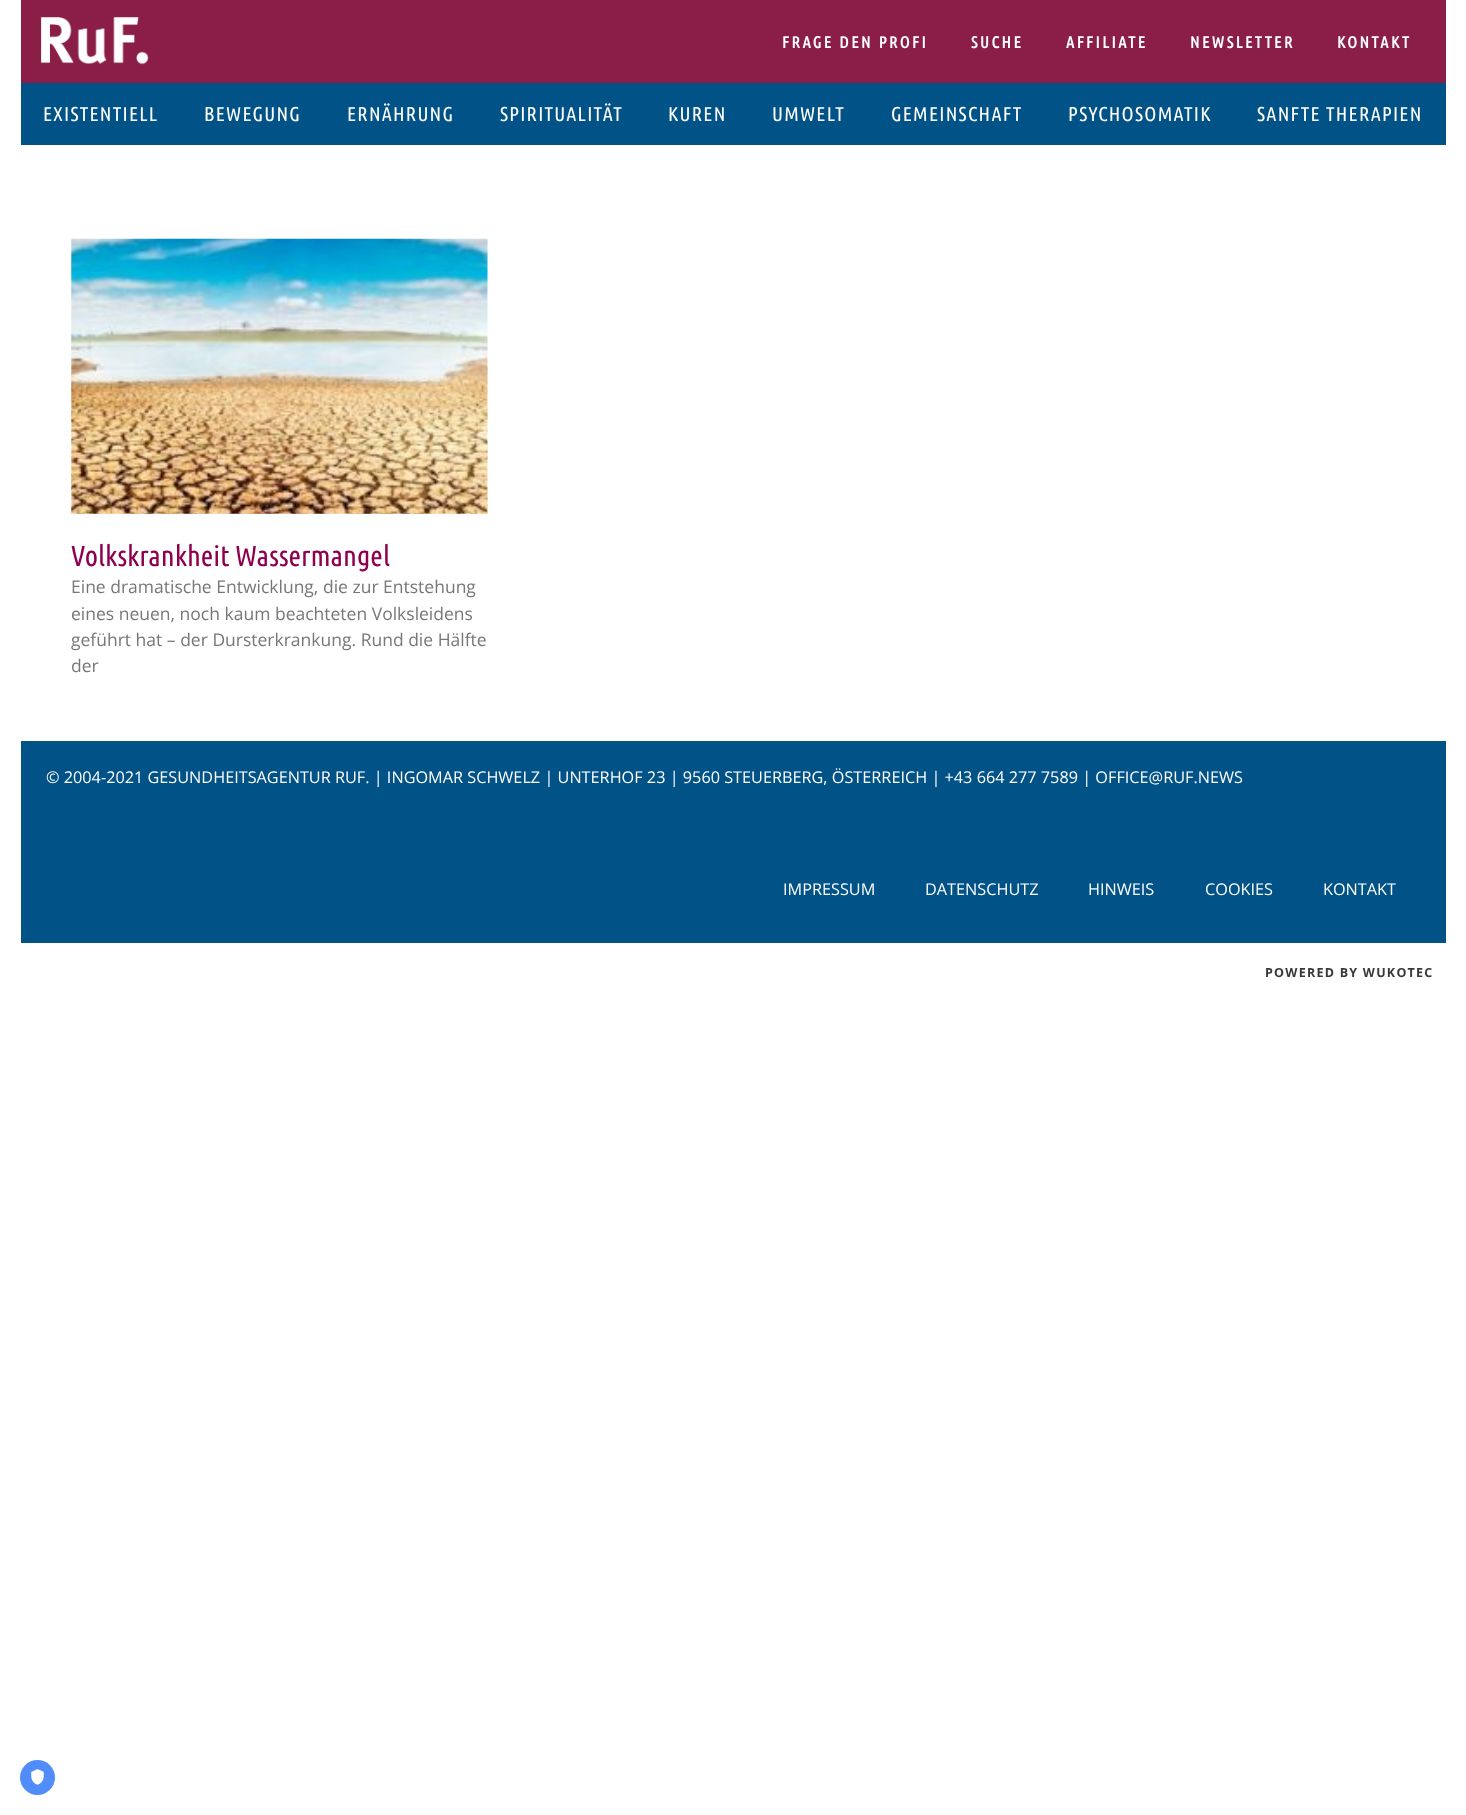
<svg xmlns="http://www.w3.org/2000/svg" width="1466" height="1815">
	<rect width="100%" height="100%" fill="#FFFFFF" />
	<rect x="21" y="0" width="1425" height="83" fill="#8A1E47" />
	<image x="41" y="17" width="108" height="48" href="assets/img1.png" />
	<g font-family="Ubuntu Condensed" font-size="16.25" font-weight="700" letter-spacing="2.5" fill="#FFFFFF">
		<text x="782" y="48">FRAGE DEN PROFI</text>
		<text x="971" y="48">SUCHE</text>
		<text x="1066" y="48">AFFILIATE</text>
		<text x="1190" y="48">NEWSLETTER</text>
		<text x="1337" y="48">KONTAKT</text>
	</g>
	<rect x="21" y="83" width="1425" height="62" fill="#005287" />
	<g font-family="Ubuntu Condensed" font-size="20" letter-spacing="1.25" fill="#FFFFFF">
		<text x="43" y="121">EXISTENTIELL</text>
		<text x="204" y="121">BEWEGUNG</text>
		<text x="347" y="121">ERNÄHRUNG</text>
		<text x="500" y="121">SPIRITUALITÄT</text>
		<text x="668" y="121">KUREN</text>
		<text x="772" y="121">UMWELT</text>
		<text x="891" y="121">GEMEINSCHAFT</text>
		<text x="1068" y="121">PSYCHOSOMATIK</text>
		<text x="1257" y="121">SANFTE THERAPIEN</text>
	</g>
	<image x="71" y="238" width="417" height="276" href="assets/img2.png" />
	<text x="71" y="566" font-family="Ubuntu Condensed" font-size="28.75" fill="#8E004E">Volkskrankheit Wassermangel</text>
	<g font-family="Open Sans" font-size="17.5" fill="#777777">
		<text x="71" y="593">Eine dramatische Entwicklung, die zur Entstehung</text>
		<text x="71" y="620">eines neuen, noch kaum beachteten Volksleidens</text>
		<text x="71" y="646">geführt hat – der Dursterkrankung. Rund die Hälfte</text>
		<text x="71" y="672">der</text>
	</g>
	<rect x="21" y="741" width="1425" height="202" fill="#005287" />
	<g font-family="Open Sans" font-size="16.25" fill="#FFFFFF">
		<text x="46" y="783">© 2004-2021 GESUNDHEITSAGENTUR RUF. | INGOMAR SCHWELZ | UNTERHOF 23 | 9560 STEUERBERG, ÖSTERREICH | +43 664 277 7589 | OFFICE@RUF.NEWS</text>
		<text x="783" y="895">IMPRESSUM</text>
		<text x="925" y="895">DATENSCHUTZ</text>
		<text x="1088" y="895">HINWEIS</text>
		<text x="1205" y="895">COOKIES</text>
		<text x="1323" y="895">KONTAKT</text>
	</g>
	<text x="1265" y="977" font-family="Open Sans" font-size="12.5" font-weight="700" letter-spacing="1.25" fill="#383838">POWERED BY WUKOTEC</text>
	<circle cx="37.5" cy="1777.5" r="17.5" fill="#508DFA" />
	<image x="31" y="1769" width="13" height="16" href="assets/img3.png" />
</svg>
